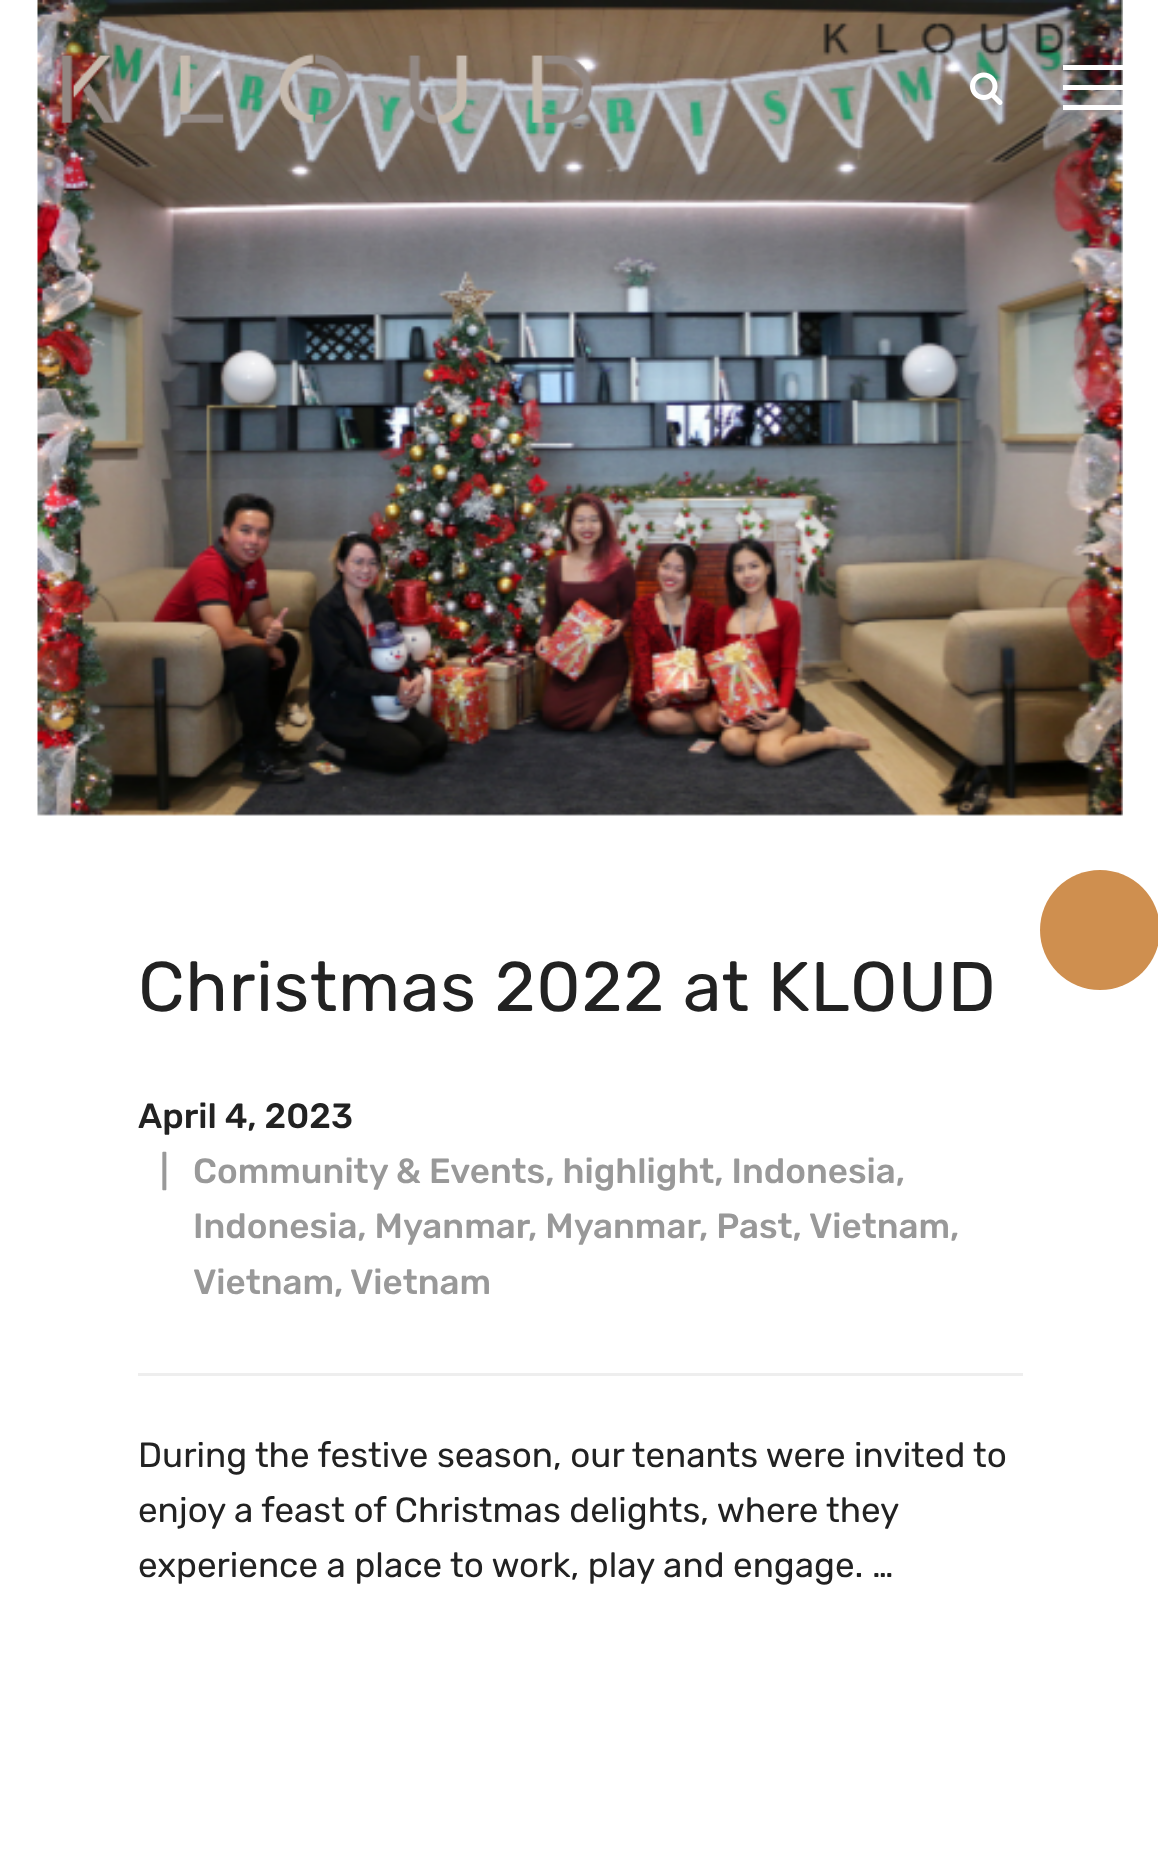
<svg xmlns="http://www.w3.org/2000/svg" width="1158" height="1857">
	<rect width="100%" height="100%" fill="#FFFFFF" />
	<circle cx="1100" cy="930" r="60" fill="#CF8F4F" />
	<image x="37" y="0" width="1086" height="816" href="assets/img3.png" />
	<image x="60" y="53" width="533" height="72" href="assets/img1.png" />
	<image x="970" y="72" width="33" height="33" href="assets/img2.png" />
	<rect x="1063" y="85" width="60" height="5" fill="#FFFFFF" />
	<rect x="1063" y="65" width="60" height="5" fill="#FFFFFF" />
	<rect x="1063" y="105" width="60" height="5" fill="#FFFFFF" />
	<text x="138" y="1011" font-family="Rubik" font-size="70" letter-spacing="0.7" fill="#222222">Christmas 2022 at KLOUD</text>
	<rect x="138" y="1373" width="885" height="3" fill="#EEEEEE" />
	<text x="138" y="1128" font-family="Rubik" font-size="35" font-weight="500" fill="#222222">April 4, 2023</text>
	<g font-family="Rubik" font-size="35" font-weight="500" fill="#999999">
		<text x="160" y="1183">|</text>
		<text x="193" y="1183">Community &amp; Events, highlight, Indonesia,</text>
		<text x="193" y="1238">Indonesia, Myanmar</text>
		<text x="528" y="1238">, Myanmar</text>
		<text x="699" y="1238">, Past,</text>
		<text x="809" y="1238">Vietnam,</text>
		<text x="193" y="1294">Vietnam,</text>
		<text x="350" y="1294">Vietnam</text>
	</g>
	<g font-family="Rubik" font-size="35" fill="#222222">
		<text x="138" y="1467">During the festive season, our tenants were invited to</text>
		<text x="138" y="1522">enjoy a feast of Christmas delights, where they</text>
		<text x="138" y="1577">experience a place to work, play and engage. …</text>
	</g>
</svg>
